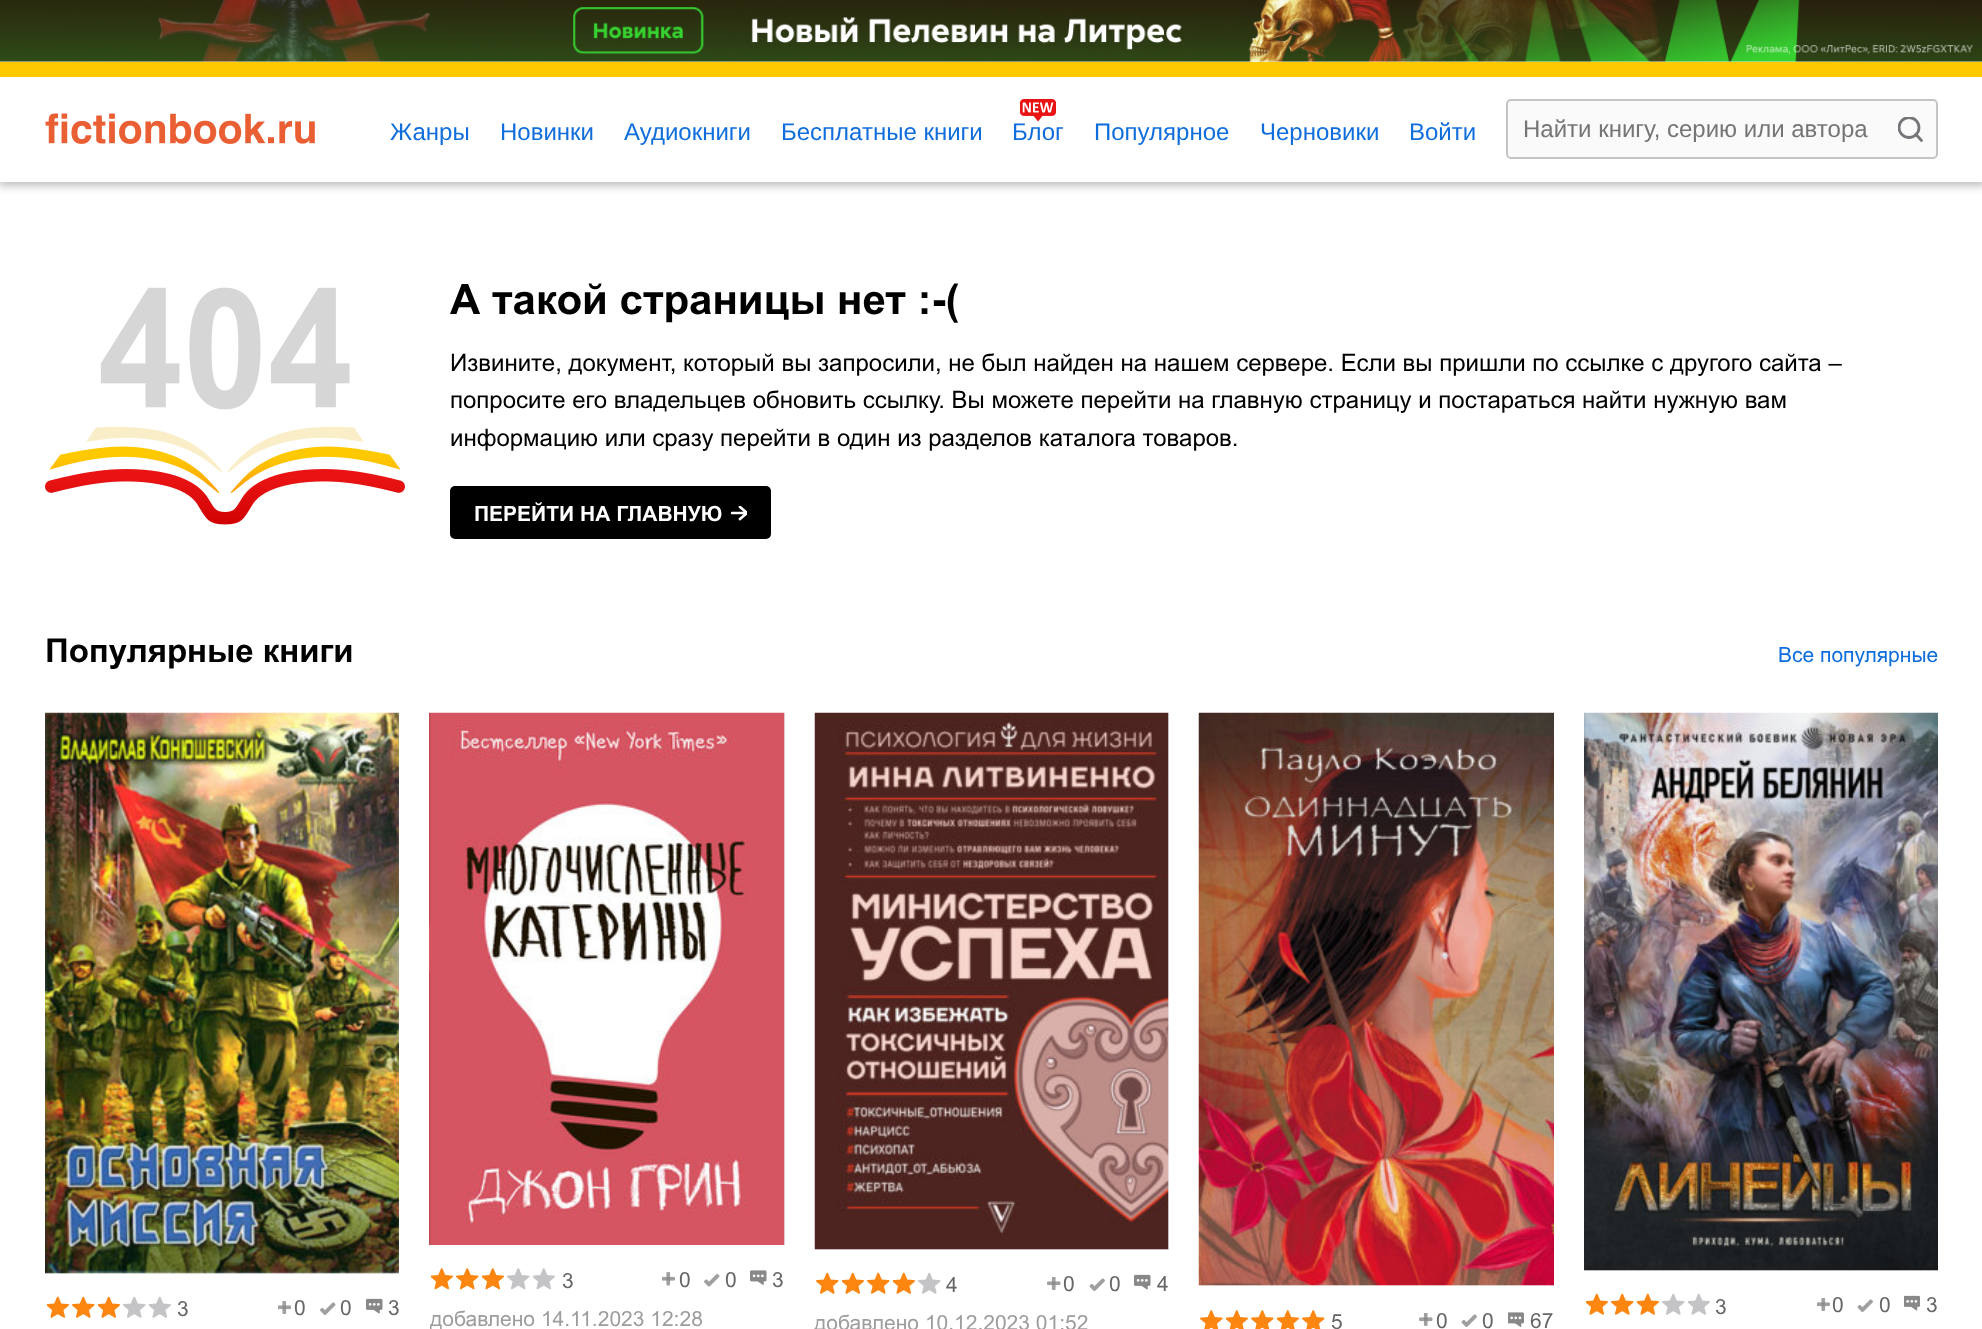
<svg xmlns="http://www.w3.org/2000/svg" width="1982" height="1329">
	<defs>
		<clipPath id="clip1"><rect x="1898" y="117" width="25" height="26" /></clipPath>
		<clipPath id="clip2"><rect x="731" y="506" width="16" height="15" /></clipPath>
	</defs>
	<rect width="100%" height="100%" fill="#FFFFFF" />
	<rect x="-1" y="63" width="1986" height="123" fill="#000000" fill-opacity="0.25" filter="blur(4.5px)" />
	<image x="0" y="0" width="1982" height="62" href="assets/img1.png" />
	<rect x="0" y="62" width="1982" height="15" fill="#FFC900" />
	<rect x="0" y="77" width="1982" height="105" fill="#FFFFFF" />
	<image x="45" y="113" width="270" height="31" href="assets/img2.png" />
	<g font-family="Liberation Sans" font-size="24" fill="#106EDC">
		<text x="390" y="140">Жанры</text>
		<text x="500" y="140">Новинки</text>
		<text x="624" y="140">Аудиокниги</text>
		<text x="781" y="140">Бесплатные книги</text>
	</g>
	<image x="1020" y="99" width="36" height="23" href="assets/img3.png" />
	<g font-family="Liberation Sans" font-size="24" fill="#106EDC">
		<text x="1012" y="140">Блог</text>
		<text x="1094" y="140">Популярное</text>
		<text x="1260" y="140">Черновики</text>
		<text x="1409" y="140">Войти</text>
	</g>
	<rect x="1507" y="100" width="430" height="58" rx="4" fill="#FAFAFA" stroke="#C4C4C6" stroke-width="2" />
	<text x="1523" y="137" font-family="Liberation Sans" font-size="24" fill="#757575">Найти книгу, серию или автора</text>
	<path d="M1916 134.5L1921.5 140.5" fill="none" stroke="#767579" stroke-width="2.8" stroke-linecap="round" stroke-linejoin="round" />
	<g clip-path="url(#clip1)">
		<circle cx="1909" cy="127.5" r="10" fill="none" stroke="#767579" stroke-width="2.8" />
	</g>
	<image x="45" y="287" width="360" height="238" href="assets/img4.png" />
	<text x="450" y="314" font-family="Arial" font-size="42" font-weight="700" fill="#000000">А такой страницы нет :-(</text>
	<g font-family="Arial" font-size="24" fill="#000000">
		<text x="450" y="371">Извините, документ, который вы запросили, не был найден на нашем сервере. Если вы пришли по ссылке с другого сайта –</text>
		<text x="450" y="408">попросите его владельцев обновить ссылку. Вы можете перейти на главную страницу и постараться найти нужную вам</text>
		<text x="450" y="446">информацию или сразу перейти в один из разделов каталога товаров.</text>
	</g>
	<rect x="450" y="486" width="321" height="53" rx="5" fill="#000000" />
	<text x="474" y="521" font-family="Arial" font-size="21" font-weight="700" fill="#FFFFFF">ПЕРЕЙТИ НА ГЛАВНУЮ</text>
	<g clip-path="url(#clip2)">
		<path d="M747 513H732M747 513L740 519M747 513L740 507" fill="none" stroke="#FFFFFF" stroke-width="2.7" stroke-linecap="round" stroke-linejoin="round" />
	</g>
	<text x="45" y="662" font-family="Arial" font-size="33" font-weight="700" fill="#000000">Популярные книги</text>
	<text x="1778" y="662" font-family="Arial" font-size="21" fill="#106EDC">Все популярные</text>
	<rect x="45" y="1273" width="354" height="1" fill="#EEEEEE" />
	<image x="45" y="712" width="354" height="562" href="assets/img5.png" />
	<image x="47" y="1296" width="22" height="22" href="assets/img6.png" />
	<image x="72" y="1296" width="23" height="22" href="assets/img7.png" />
	<image x="98" y="1296" width="22" height="22" href="assets/img6.png" />
	<image x="123" y="1296" width="23" height="22" href="assets/img8.png" />
	<image x="149" y="1296" width="22" height="22" href="assets/img9.png" />
	<text x="177" y="1316" font-family="Arial" font-size="21" fill="#666666">3</text>
	<image x="278" y="1301" width="13" height="13" href="assets/img10.png" />
	<text x="294" y="1315" font-family="Arial" font-size="21" fill="#666666">0</text>
	<image x="320" y="1302" width="16" height="13" href="assets/img11.png" />
	<text x="340" y="1315" font-family="Arial" font-size="21" fill="#666666">0</text>
	<image x="366" y="1298" width="17" height="16" href="assets/img12.png" />
	<text x="388" y="1315" font-family="Arial" font-size="21" fill="#666666">3</text>
	<rect x="784" y="713" width="1" height="532" fill="#EEEEEE" />
	<image x="429" y="712" width="356" height="533" href="assets/img13.png" />
	<image x="431" y="1268" width="22" height="22" href="assets/img14.png" />
	<image x="456" y="1268" width="23" height="22" href="assets/img15.png" />
	<image x="482" y="1268" width="22" height="22" href="assets/img14.png" />
	<image x="507" y="1268" width="23" height="22" href="assets/img16.png" />
	<image x="533" y="1268" width="22" height="22" href="assets/img17.png" />
	<text x="562" y="1288" font-family="Arial" font-size="21" fill="#666666">3</text>
	<image x="662" y="1272" width="13" height="14" href="assets/img18.png" />
	<text x="679" y="1287" font-family="Arial" font-size="21" fill="#666666">0</text>
	<image x="704" y="1274" width="16" height="13" href="assets/img19.png" />
	<text x="725" y="1287" font-family="Arial" font-size="21" fill="#666666">0</text>
	<image x="750" y="1270" width="17" height="15" href="assets/img20.png" />
	<text x="772" y="1287" font-family="Arial" font-size="21" fill="#666666">3</text>
	<text x="430" y="1326" font-family="Arial" font-size="21" fill="#9D9C9F">добавлено 14.11.2023 12:28</text>
	<rect x="815" y="713" width="354" height="537" fill="#EEEEEE" />
	<image x="814" y="712" width="355" height="538" href="assets/img21.png" />
	<image x="816" y="1272" width="23" height="22" href="assets/img7.png" />
	<image x="842" y="1272" width="22" height="22" href="assets/img6.png" />
	<image x="867" y="1272" width="23" height="22" href="assets/img7.png" />
	<image x="893" y="1272" width="22" height="22" href="assets/img6.png" />
	<image x="918" y="1272" width="23" height="22" href="assets/img8.png" />
	<text x="946" y="1292" font-family="Arial" font-size="21" fill="#666666">4</text>
	<image x="1047" y="1277" width="14" height="13" href="assets/img22.png" />
	<text x="1063" y="1291" font-family="Arial" font-size="21" fill="#666666">0</text>
	<image x="1089" y="1278" width="16" height="13" href="assets/img23.png" />
	<text x="1109" y="1291" font-family="Arial" font-size="21" fill="#666666">0</text>
	<image x="1134" y="1274" width="17" height="16" href="assets/img12.png" />
	<text x="1157" y="1291" font-family="Arial" font-size="21" fill="#666666">4</text>
	<text x="814" y="1330" font-family="Arial" font-size="21" fill="#9D9C9F">добавлено 10.12.2023 01:52</text>
	<rect x="1584" y="1270" width="354" height="1" fill="#EEEEEE" />
	<image x="1584" y="712" width="354" height="559" href="assets/img24.png" />
	<image x="1586" y="1293" width="22" height="22" href="assets/img6.png" />
	<image x="1611" y="1293" width="23" height="22" href="assets/img7.png" />
	<image x="1637" y="1293" width="22" height="22" href="assets/img6.png" />
	<image x="1662" y="1293" width="23" height="22" href="assets/img8.png" />
	<image x="1688" y="1293" width="22" height="22" href="assets/img9.png" />
	<text x="1715" y="1314" font-family="Arial" font-size="21" fill="#666666">3</text>
	<image x="1817" y="1298" width="13" height="13" href="assets/img10.png" />
	<text x="1832" y="1312" font-family="Arial" font-size="21" fill="#666666">0</text>
	<image x="1857" y="1299" width="16" height="13" href="assets/img23.png" />
	<text x="1879" y="1312" font-family="Arial" font-size="21" fill="#666666">0</text>
	<image x="1904" y="1295" width="16" height="16" href="assets/img25.png" />
	<text x="1926" y="1312" font-family="Arial" font-size="21" fill="#666666">3</text>
	<rect x="1199" y="1285" width="355" height="1" fill="#EEEEEE" />
	<image x="1198" y="712" width="356" height="574" href="assets/img26.png" />
	<image x="1200" y="1310" width="23" height="19" href="assets/img27.png" />
	<image x="1226" y="1310" width="22" height="19" href="assets/img28.png" />
	<image x="1251" y="1310" width="23" height="19" href="assets/img27.png" />
	<image x="1277" y="1310" width="22" height="19" href="assets/img28.png" />
	<image x="1302" y="1310" width="23" height="19" href="assets/img27.png" />
	<text x="1331" y="1329" font-family="Arial" font-size="21" fill="#666666">5</text>
	<image x="1419" y="1313" width="14" height="13" href="assets/img22.png" />
	<text x="1436" y="1328" font-family="Arial" font-size="21" fill="#666666">0</text>
	<image x="1461" y="1314" width="16" height="13" href="assets/img23.png" />
	<text x="1482" y="1328" font-family="Arial" font-size="21" fill="#666666">0</text>
	<image x="1508" y="1312" width="16" height="15" href="assets/img29.png" />
	<text x="1530" y="1328" font-family="Arial" font-size="21" fill="#666666">67</text>
</svg>
